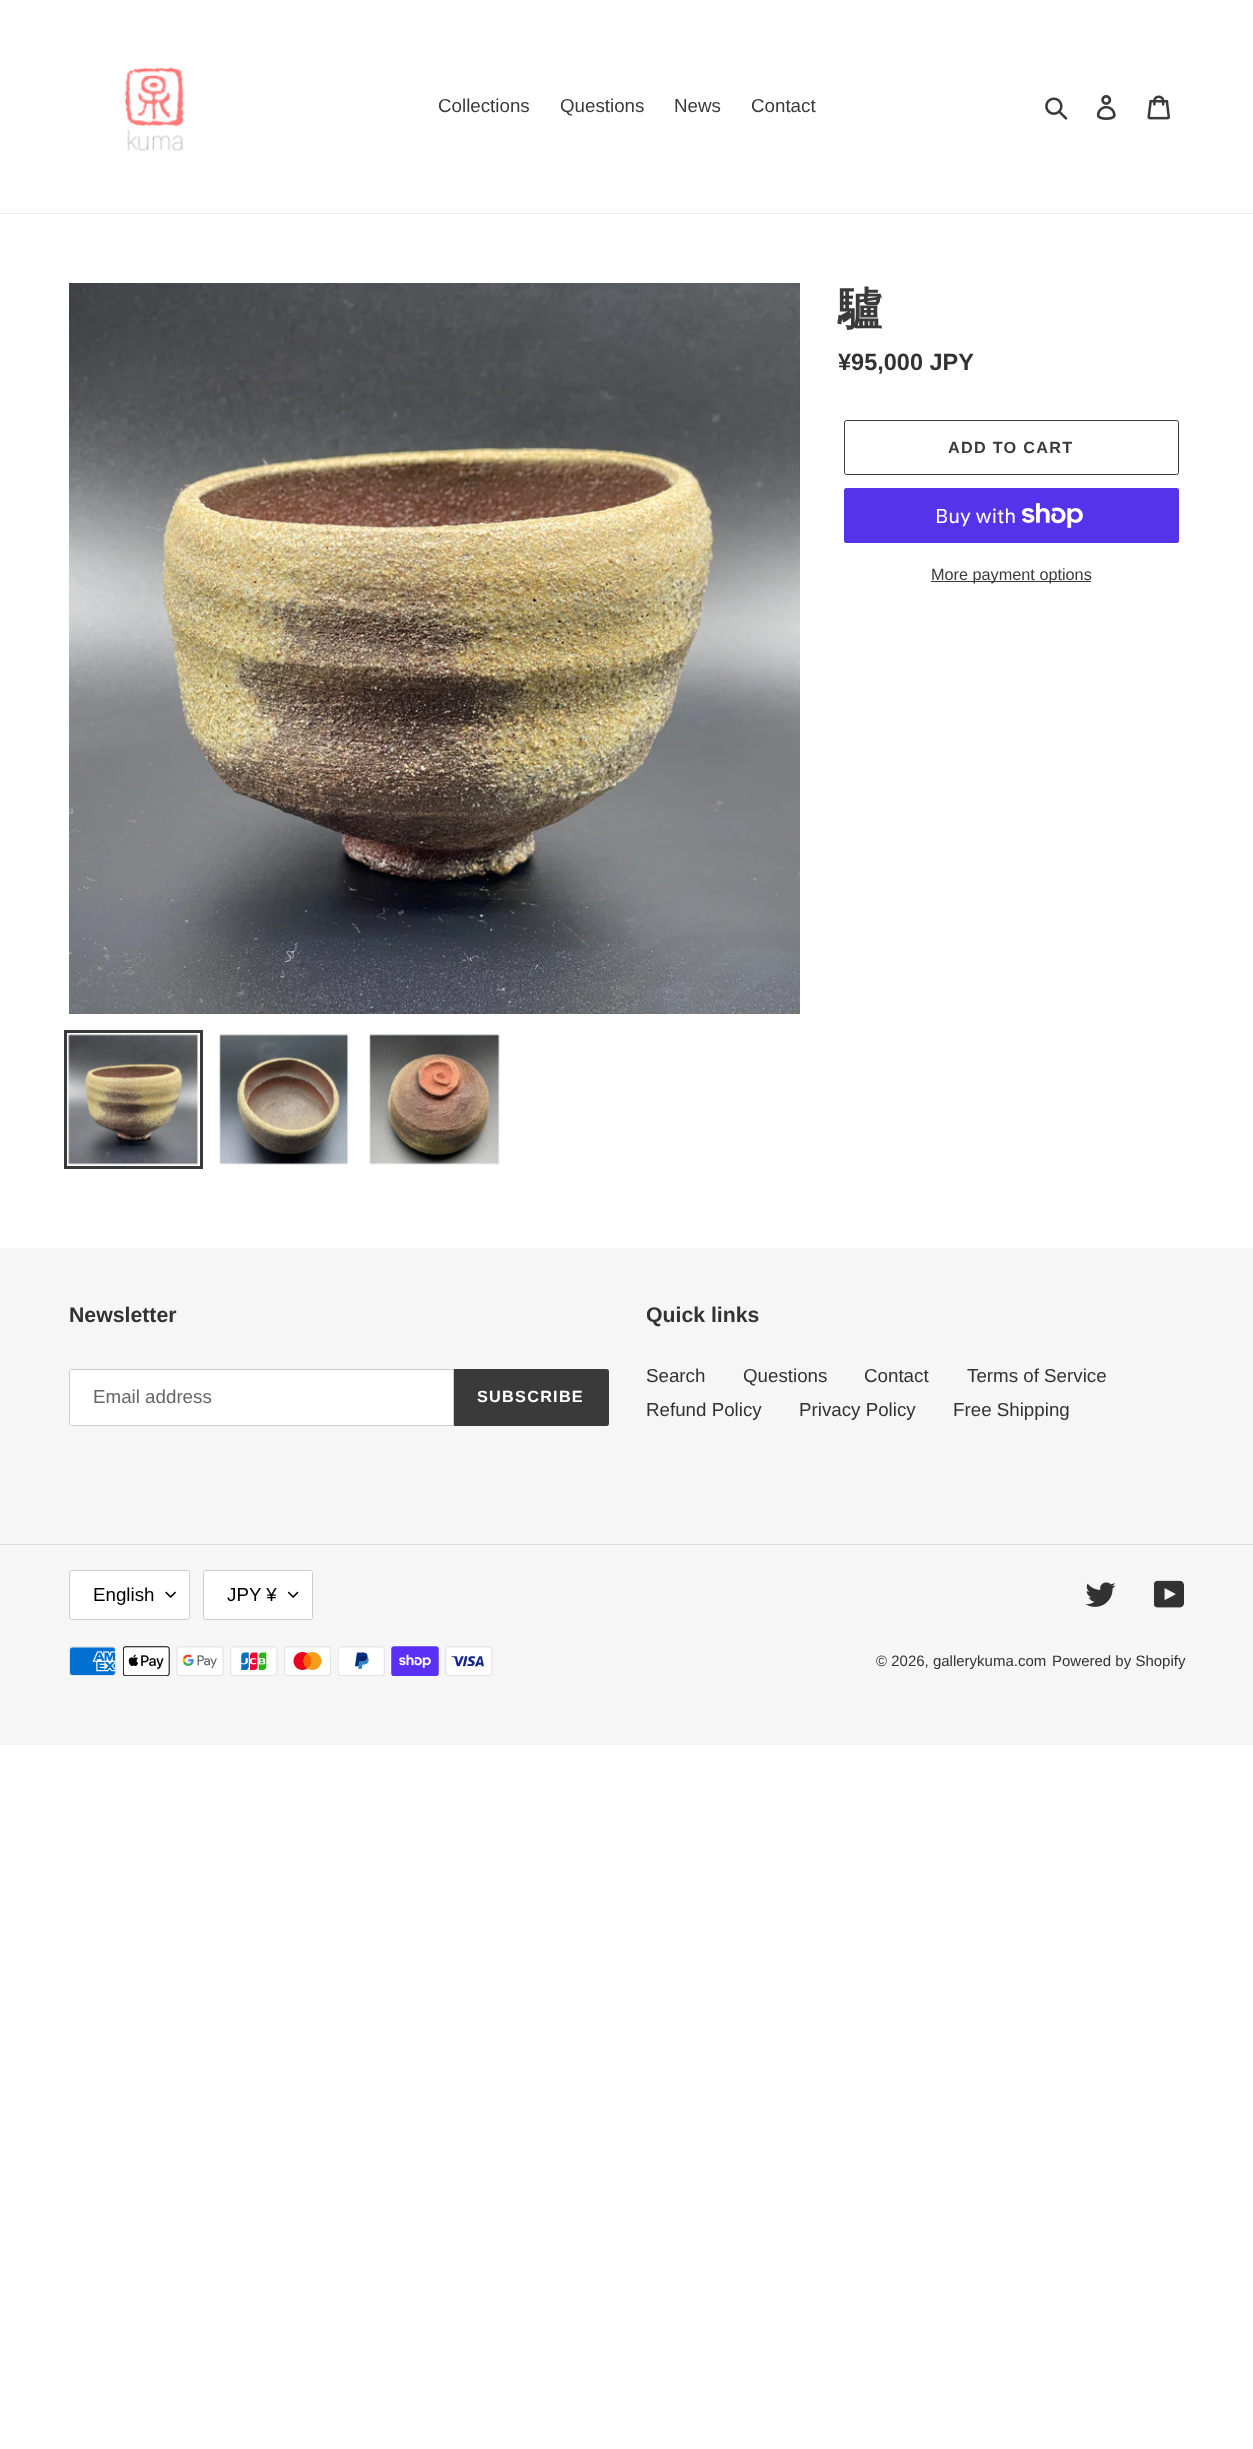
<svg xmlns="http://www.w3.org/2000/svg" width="1253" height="2449">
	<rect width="100%" height="100%" fill="#FFFFFF" />
	<rect x="0" y="213" width="1253" height="1" fill="#EBEBEB" />
	<image x="124" y="66" width="61" height="85" href="assets/img1.png" />
	<g font-family="Liberation Sans" font-size="18.75" fill="#3A3A3A">
		<text x="438" y="112">Collections</text>
		<text x="560" y="112">Questions</text>
		<text x="674" y="112">News</text>
		<text x="751" y="112">Contact</text>
	</g>
	<image x="1045" y="97" width="23" height="23" href="assets/img2.png" />
	<image x="1096" y="95" width="20" height="25" href="assets/img3.png" />
	<image x="1147" y="95" width="23" height="25" href="assets/img4.png" />
	<image x="69" y="283" width="731" height="731" href="assets/img5.png" />
	<rect x="65.5" y="1031.5" width="136" height="136" fill="none" stroke="#3A3A3A" stroke-width="3" />
	<image x="68" y="1034" width="131" height="131" href="assets/img6.png" />
	<image x="219" y="1034" width="130" height="131" href="assets/img7.png" />
	<image x="369" y="1034" width="131" height="131" href="assets/img8.png" />
	<text x="838" y="324" font-family="WenQuanYi Zen Hei" font-size="44" font-weight="700" fill="#3A3A3A">驢</text>
	<text x="838" y="370" font-family="Liberation Sans" font-size="23.5" font-weight="700" fill="#333232">¥95,000 JPY</text>
	<rect x="844.5" y="420.5" width="334" height="54" rx="2" fill="none" stroke="#3A3A3A" />
	<text x="948" y="453" font-family="Liberation Sans" font-size="16.25" font-weight="700" letter-spacing="1.25" fill="#3A3A3A">ADD TO CART</text>
	<rect x="844" y="488" width="335" height="55" rx="2.5" fill="#5433EB" />
	<text x="935" y="523" font-family="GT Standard" font-size="20" fill="#FFFFFF">Buy with</text>
	<image x="1021" y="503" width="62" height="25" href="assets/img9.png" />
	<rect x="931" y="581" width="160" height="1" fill="#3A3A3A" />
	<text x="931" y="580" font-family="Liberation Sans" font-size="16.25" fill="#3A3A3A">More payment options</text>
	<rect x="0" y="1248" width="1253" height="497" fill="#F6F6F6" />
	<text x="69" y="1322" font-family="Liberation Sans" font-size="21.25" font-weight="700" fill="#333232">Newsletter</text>
	<path d="M71.5 1369.5H453.5V1425.5H71.5C70.5 1425.5 69.5 1424.5 69.5 1423.5V1371.5C69.5 1370.5 70.5 1369.5 71.5 1369.5Z" fill="#FFFFFF" stroke="#CCCCCC" />
	<text x="93" y="1403" font-family="Liberation Sans" font-size="18.75" fill="#666666">Email address</text>
	<path d="M454 1369H606.5C608 1369 609 1370 609 1371.5V1423.5C609 1425 608 1426 606.5 1426H454Z" fill="#3A3A3A" />
	<text x="477" y="1402" font-family="Liberation Sans" font-size="16.25" font-weight="700" letter-spacing="1.25" fill="#FFFFFF">SUBSCRIBE</text>
	<text x="646" y="1322" font-family="Liberation Sans" font-size="21.25" font-weight="700" fill="#333232">Quick links</text>
	<g font-family="Liberation Sans" font-size="18.75" fill="#333232">
		<text x="646" y="1382">Search</text>
		<text x="743" y="1382">Questions</text>
		<text x="864" y="1382">Contact</text>
		<text x="967" y="1382">Terms of Service</text>
		<text x="646" y="1416">Refund Policy</text>
		<text x="799" y="1416">Privacy Policy</text>
		<text x="953" y="1416">Free Shipping</text>
	</g>
	<rect x="0" y="1544" width="1253" height="1" fill="#DDDDDD" />
	<rect x="69" y="1570" width="121" height="50" rx="2.5" fill="#FFFFFF" />
	<image x="165" y="1591" width="11" height="7" href="assets/img10.png" />
	<rect x="69.5" y="1570.5" width="120" height="49" rx="2" fill="none" stroke="#CCCCCC" />
	<text x="93" y="1601" font-family="Liberation Sans" font-size="18.75" fill="#000000">English</text>
	<rect x="203" y="1570" width="110" height="50" rx="2.5" fill="#FFFFFF" />
	<image x="288" y="1591" width="11" height="7" href="assets/img11.png" />
	<rect x="203.5" y="1570.5" width="109" height="49" rx="2" fill="none" stroke="#CCCCCC" />
	<text x="227" y="1601" font-family="Liberation Sans" font-size="18.75" fill="#000000">JPY ¥</text>
	<image x="1085" y="1582" width="31" height="25" href="assets/img12.png" />
	<image x="1154" y="1580" width="30" height="28" href="assets/img13.png" />
	<image x="69" y="1646" width="47" height="30" href="assets/img14.png" />
	<image x="123" y="1646" width="47" height="30" href="assets/img15.png" />
	<image x="176" y="1646" width="48" height="30" href="assets/img16.png" />
	<image x="230" y="1646" width="48" height="30" href="assets/img17.png" />
	<image x="284" y="1646" width="47" height="30" href="assets/img18.png" />
	<image x="338" y="1646" width="47" height="30" href="assets/img19.png" />
	<image x="391" y="1646" width="48" height="30" href="assets/img20.png" />
	<image x="445" y="1646" width="48" height="30" href="assets/img21.png" />
	<g font-family="Liberation Sans" font-size="15" fill="#333232">
		<text x="876" y="1666">© 2026, gallerykuma.com</text>
		<text x="1052" y="1666">Powered by Shopify</text>
	</g>
</svg>
